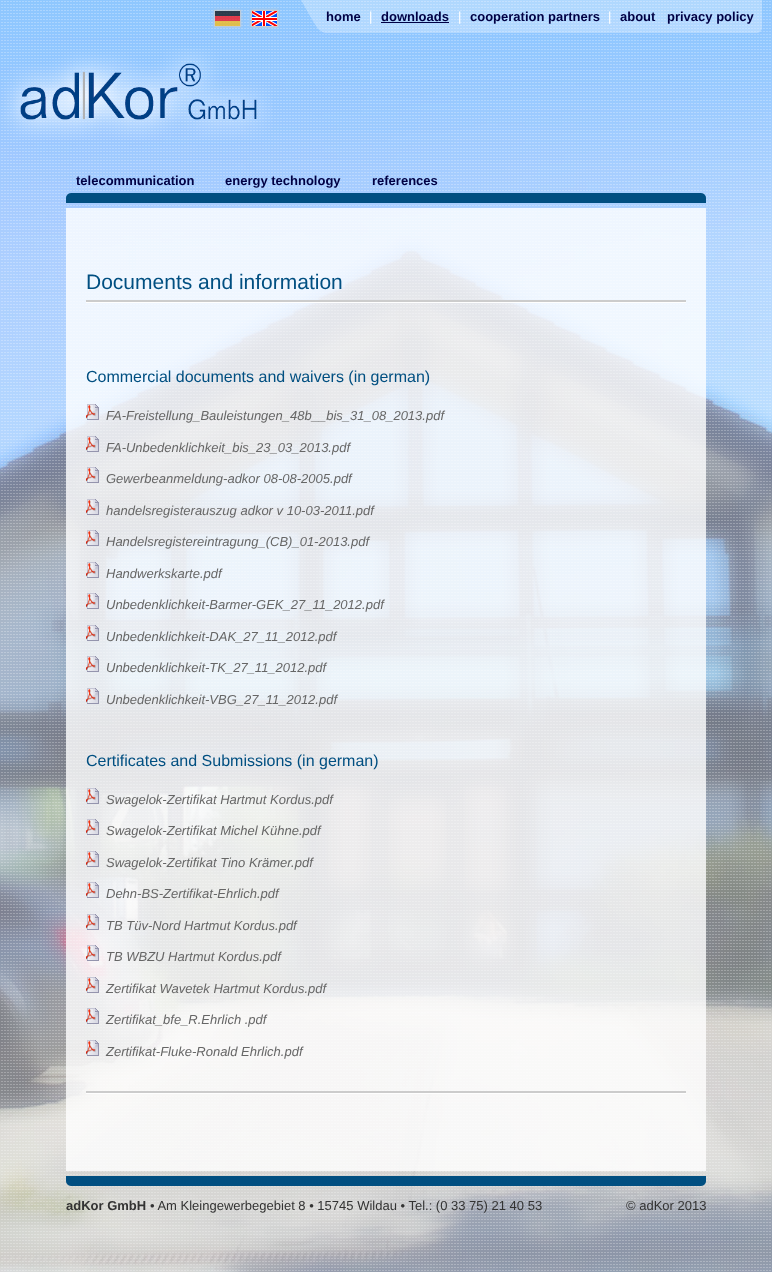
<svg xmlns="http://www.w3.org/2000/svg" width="772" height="1272">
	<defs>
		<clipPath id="clip1"><path d="M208 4H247V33H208ZM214 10H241V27H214Z" clip-rule="evenodd" /></clipPath>
	</defs>
	<rect width="100%" height="100%" fill="#FFFFFF" />
	<image x="0" y="0" width="772" height="1272" href="assets/img1.png" />
	<g clip-path="url(#clip1)">
		<rect x="214" y="10" width="27" height="17" fill="#CCCCCC" fill-opacity="0.7" filter="blur(1.5px)" />
	</g>
	<image x="215" y="11" width="25" height="15" href="assets/img2.png" />
	<rect x="214.5" y="10.5" width="26" height="16" fill="none" stroke="#CCCCCC" stroke-opacity="0.7" />
	<rect x="251" y="10" width="27" height="17" fill="#CCCCCC" filter="blur(1.5px)" />
	<image x="252" y="11" width="25" height="15" href="assets/img3.png" />
	<rect x="251.5" y="10.5" width="26" height="16" fill="none" stroke="#CCCCCC" />
	<image x="301" y="0" width="25" height="33" href="assets/img4.png" />
	<image x="757" y="0" width="5" height="33" href="assets/img5.png" />
	<rect x="326" y="0" width="431" height="33" fill="#FFFFFF" fill-opacity="0.3" />
	<text x="326" y="21" font-family="Liberation Sans" font-size="13" font-weight="700" fill="#000044">home</text>
	<text x="369" y="21" font-family="Liberation Sans" font-size="13" fill="#FFFFFF">|</text>
	<text x="381" y="21" font-family="Liberation Sans" font-size="13" font-weight="700" fill="#000044">downloads</text>
	<rect x="381" y="22" width="68" height="1" fill="#000044" />
	<text x="458" y="21" font-family="Liberation Sans" font-size="13" fill="#FFFFFF">|</text>
	<text x="470" y="21" font-family="Liberation Sans" font-size="13" font-weight="700" fill="#000044">cooperation partners</text>
	<text x="608" y="21" font-family="Liberation Sans" font-size="13" fill="#FFFFFF">|</text>
	<g font-family="Liberation Sans" font-size="13" font-weight="700" fill="#000044">
		<text x="620" y="21">about</text>
		<text x="667" y="21">privacy policy</text>
	</g>
	<image x="0" y="48" width="272" height="92" href="assets/img6.png" />
	<image x="66" y="193" width="640" height="10" href="assets/img7.png" />
	<g font-family="Liberation Sans" font-size="13" font-weight="700" fill="#000044">
		<text x="76" y="185">telecommunication</text>
		<text x="225" y="185">energy technology</text>
		<text x="372" y="185">references</text>
	</g>
	<rect x="66" y="208" width="640" height="963" fill="#FFFFFF" fill-opacity="0.8" />
	<rect x="86" y="1093" width="600" height="1" fill="#FFFFFF" />
	<rect x="86" y="1091" width="600" height="2" fill="#CCCCCC" />
	<rect x="86" y="302" width="600" height="1" fill="#FFFFFF" />
	<rect x="86" y="300" width="600" height="2" fill="#CCCCCC" />
	<text x="86" y="289" font-family="Liberation Sans" font-size="21" fill="#014F81">Documents and information</text>
	<text x="86" y="382" font-family="Liberation Sans" font-size="16" fill="#014F81">Commercial documents and waivers (in german)</text>
	<image x="86" y="404" width="13" height="16" href="assets/img8.png" />
	<text x="106" y="420" font-family="Liberation Sans" font-size="13" font-style="italic" fill="#666666">FA-Freistellung_Bauleistungen_48b__bis_31_08_2013.pdf</text>
	<image x="86" y="436" width="13" height="16" href="assets/img9.png" />
	<text x="106" y="452" font-family="Liberation Sans" font-size="13" font-style="italic" fill="#666666">FA-Unbedenklichkeit_bis_23_03_2013.pdf</text>
	<image x="86" y="467" width="13" height="16" href="assets/img10.png" />
	<text x="106" y="483" font-family="Liberation Sans" font-size="13" font-style="italic" fill="#666666">Gewerbeanmeldung-adkor 08-08-2005.pdf</text>
	<image x="86" y="499" width="13" height="16" href="assets/img11.png" />
	<text x="106" y="515" font-family="Liberation Sans" font-size="13" font-style="italic" fill="#666666">handelsregisterauszug adkor v 10-03-2011.pdf</text>
	<image x="86" y="530" width="13" height="16" href="assets/img12.png" />
	<text x="106" y="546" font-family="Liberation Sans" font-size="13" font-style="italic" fill="#666666">Handelsregistereintragung_(CB)_01-2013.pdf</text>
	<image x="86" y="562" width="13" height="16" href="assets/img13.png" />
	<text x="106" y="578" font-family="Liberation Sans" font-size="13" font-style="italic" fill="#666666">Handwerkskarte.pdf</text>
	<image x="86" y="593" width="13" height="16" href="assets/img14.png" />
	<text x="106" y="609" font-family="Liberation Sans" font-size="13" font-style="italic" fill="#666666">Unbedenklichkeit-Barmer-GEK_27_11_2012.pdf</text>
	<image x="86" y="625" width="13" height="16" href="assets/img15.png" />
	<text x="106" y="641" font-family="Liberation Sans" font-size="13" font-style="italic" fill="#666666">Unbedenklichkeit-DAK_27_11_2012.pdf</text>
	<image x="86" y="656" width="13" height="16" href="assets/img16.png" />
	<text x="106" y="672" font-family="Liberation Sans" font-size="13" font-style="italic" fill="#666666">Unbedenklichkeit-TK_27_11_2012.pdf</text>
	<image x="86" y="688" width="13" height="16" href="assets/img17.png" />
	<text x="106" y="704" font-family="Liberation Sans" font-size="13" font-style="italic" fill="#666666">Unbedenklichkeit-VBG_27_11_2012.pdf</text>
	<text x="86" y="766" font-family="Liberation Sans" font-size="16" fill="#014F81">Certificates and Submissions (in german)</text>
	<image x="86" y="788" width="13" height="16" href="assets/img18.png" />
	<text x="106" y="804" font-family="Liberation Sans" font-size="13" font-style="italic" fill="#666666">Swagelok-Zertifikat Hartmut Kordus.pdf</text>
	<image x="86" y="819" width="13" height="16" href="assets/img19.png" />
	<text x="106" y="835" font-family="Liberation Sans" font-size="13" font-style="italic" fill="#666666">Swagelok-Zertifikat Michel Kühne.pdf</text>
	<image x="86" y="851" width="13" height="16" href="assets/img20.png" />
	<text x="106" y="867" font-family="Liberation Sans" font-size="13" font-style="italic" fill="#666666">Swagelok-Zertifikat Tino Krämer.pdf</text>
	<image x="86" y="882" width="13" height="16" href="assets/img21.png" />
	<text x="106" y="898" font-family="Liberation Sans" font-size="13" font-style="italic" fill="#666666">Dehn-BS-Zertifikat-Ehrlich.pdf</text>
	<image x="86" y="914" width="13" height="16" href="assets/img22.png" />
	<text x="106" y="930" font-family="Liberation Sans" font-size="13" font-style="italic" fill="#666666">TB Tüv-Nord Hartmut Kordus.pdf</text>
	<image x="86" y="945" width="13" height="16" href="assets/img23.png" />
	<text x="106" y="961" font-family="Liberation Sans" font-size="13" font-style="italic" fill="#666666">TB WBZU Hartmut Kordus.pdf</text>
	<image x="86" y="977" width="13" height="16" href="assets/img24.png" />
	<text x="106" y="993" font-family="Liberation Sans" font-size="13" font-style="italic" fill="#666666">Zertifikat Wavetek Hartmut Kordus.pdf</text>
	<image x="86" y="1008" width="13" height="16" href="assets/img25.png" />
	<text x="106" y="1024" font-family="Liberation Sans" font-size="13" font-style="italic" fill="#666666">Zertifikat_bfe_R.Ehrlich .pdf</text>
	<image x="86" y="1040" width="13" height="16" href="assets/img26.png" />
	<text x="106" y="1056" font-family="Liberation Sans" font-size="13" font-style="italic" fill="#666666">Zertifikat-Fluke-Ronald Ehrlich.pdf</text>
	<image x="66" y="1176" width="640" height="10" href="assets/img27.png" />
	<text x="66" y="1210" font-family="Liberation Sans" font-size="13" font-weight="700" fill="#333333">adKor GmbH</text>
	<g font-family="Liberation Sans" font-size="13" fill="#333333">
		<text x="150" y="1210">• Am Kleingewerbegebiet 8 • 15745 Wildau • Tel.: (0 33 75) 21 40 53</text>
		<text x="626" y="1210">© adKor 2013</text>
	</g>
</svg>
